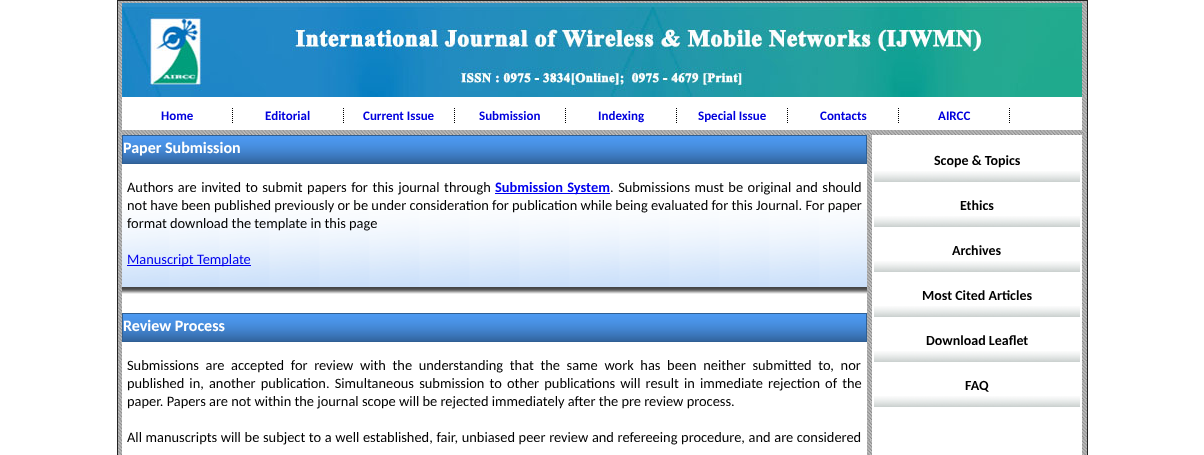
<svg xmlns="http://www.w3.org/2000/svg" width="1204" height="455">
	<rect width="100%" height="100%" fill="#FFFFFF" />
	<image x="118" y="1" width="969" height="454" href="assets/img1.png" />
	<rect x="117.5" y="0.5" width="970" height="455" fill="none" stroke="#222222" />
	<image x="867" y="130" width="5" height="325" href="assets/img2.png" />
	<rect x="122" y="97" width="960" height="33" fill="#FFFFFF" />
	<image x="122" y="3" width="960" height="94" href="assets/img3.png" />
	<path d="M232.5 108V123" fill="none" stroke="#000000" stroke-dasharray="1 1" />
	<text x="161" y="120" font-family="Carlito" font-size="13" font-weight="700" fill="#0000DD">Home</text>
	<path d="M343.5 108V123" fill="none" stroke="#000000" stroke-dasharray="1 1" />
	<text x="265" y="120" font-family="Carlito" font-size="13" font-weight="700" fill="#0000DD">Editorial</text>
	<path d="M454.5 108V123" fill="none" stroke="#000000" stroke-dasharray="1 1" />
	<text x="363" y="120" font-family="Carlito" font-size="13" font-weight="700" fill="#0000DD">Current Issue</text>
	<path d="M565.5 108V123" fill="none" stroke="#000000" stroke-dasharray="1 1" />
	<text x="479" y="120" font-family="Carlito" font-size="13" font-weight="700" fill="#0000DD">Submission</text>
	<path d="M676.5 108V123" fill="none" stroke="#000000" stroke-dasharray="1 1" />
	<text x="598" y="120" font-family="Carlito" font-size="13" font-weight="700" fill="#0000DD">Indexing</text>
	<path d="M787.5 108V123" fill="none" stroke="#000000" stroke-dasharray="1 1" />
	<text x="698" y="120" font-family="Carlito" font-size="13" font-weight="700" fill="#0000DD">Special Issue</text>
	<path d="M898.5 108V123" fill="none" stroke="#000000" stroke-dasharray="1 1" />
	<text x="820" y="120" font-family="Carlito" font-size="13" font-weight="700" fill="#0000DD">Contacts</text>
	<path d="M1009.5 108V123" fill="none" stroke="#000000" stroke-dasharray="1 1" />
	<text x="938" y="120" font-family="Carlito" font-size="13" font-weight="700" fill="#0000DD">AIRCC</text>
	<rect x="122" y="164" width="745" height="291" fill="#FFFFFF" />
	<image x="122" y="130" width="745" height="5" href="assets/img4.png" />
	<image x="123" y="136" width="743" height="27" href="assets/img5.png" />
	<rect x="122.5" y="135.5" width="744" height="28" fill="none" stroke="#2F5F94" />
	<text x="123" y="153" font-family="Carlito" font-size="16" font-weight="700" fill="#FFFFFF">Paper Submission</text>
	<image x="122" y="209" width="745" height="85" href="assets/img6.png" />
	<text x="127" y="192" word-spacing="1.25" font-family="Carlito" font-size="14.4" fill="#000000">Authors are invited to submit papers for this journal through</text>
	<rect x="495" y="193" width="115" height="1" fill="#0000EE" />
	<text x="495" y="192" word-spacing="1" font-family="Carlito" font-size="14.4" font-weight="700" fill="#0000EE">Submission System</text>
	<g font-family="Carlito" font-size="14.4" fill="#000000">
		<text x="610" y="192" word-spacing="1.25">. Submissions must be original and should</text>
		<text x="127" y="210">not have been published previously or be under consideration for publication while being evaluated for this Journal. For paper</text>
		<text x="127" y="228">format download the template in this page</text>
	</g>
	<rect x="127" y="265" width="124" height="1" fill="#0000EE" />
	<text x="127" y="264" font-family="Carlito" font-size="14.4" fill="#0000EE">Manuscript Template</text>
	<image x="123" y="314" width="743" height="27" href="assets/img5.png" />
	<rect x="122.5" y="313.5" width="744" height="28" fill="none" stroke="#2F5F94" />
	<text x="123" y="331" font-family="Carlito" font-size="16" font-weight="700" fill="#FFFFFF">Review Process</text>
	<g font-family="Carlito" font-size="14.4" fill="#000000">
		<text x="127" y="370" word-spacing="3.4">Submissions are accepted for review with the understanding that the same work has been neither submitted to, nor</text>
		<text x="127" y="388" word-spacing="1.9">published in, another publication. Simultaneous submission to other publications will result in immediate rejection of the</text>
		<text x="127" y="406">paper. Papers are not within the journal scope will be rejected immediately after the pre review process.</text>
		<text x="127" y="442" word-spacing="0.4">All manuscripts will be subject to a well established, fair, unbiased peer review and refereeing procedure, and are considered</text>
	</g>
	<rect x="872" y="135" width="210" height="320" fill="#FFFFFF" />
	<image x="872" y="130" width="210" height="5" href="assets/img7.png" />
	<image x="874" y="171" width="206" height="11" href="assets/img8.png" />
	<text x="934" y="165" font-family="Carlito" font-size="14" font-weight="700" fill="#000000">Scope &amp; Topics</text>
	<image x="874" y="216" width="206" height="11" href="assets/img8.png" />
	<text x="960" y="210" font-family="Carlito" font-size="14" font-weight="700" fill="#000000">Ethics</text>
	<image x="874" y="261" width="206" height="11" href="assets/img8.png" />
	<text x="952" y="255" font-family="Carlito" font-size="14" font-weight="700" fill="#000000">Archives</text>
	<image x="874" y="306" width="206" height="11" href="assets/img8.png" />
	<text x="922" y="300" font-family="Carlito" font-size="14" font-weight="700" fill="#000000">Most Cited Articles</text>
	<image x="874" y="351" width="206" height="11" href="assets/img8.png" />
	<text x="926" y="345" font-family="Carlito" font-size="14" font-weight="700" fill="#000000">Download Leaflet</text>
	<image x="874" y="396" width="206" height="11" href="assets/img8.png" />
	<text x="965" y="390" font-family="Carlito" font-size="14" font-weight="700" fill="#000000">FAQ</text>
</svg>
